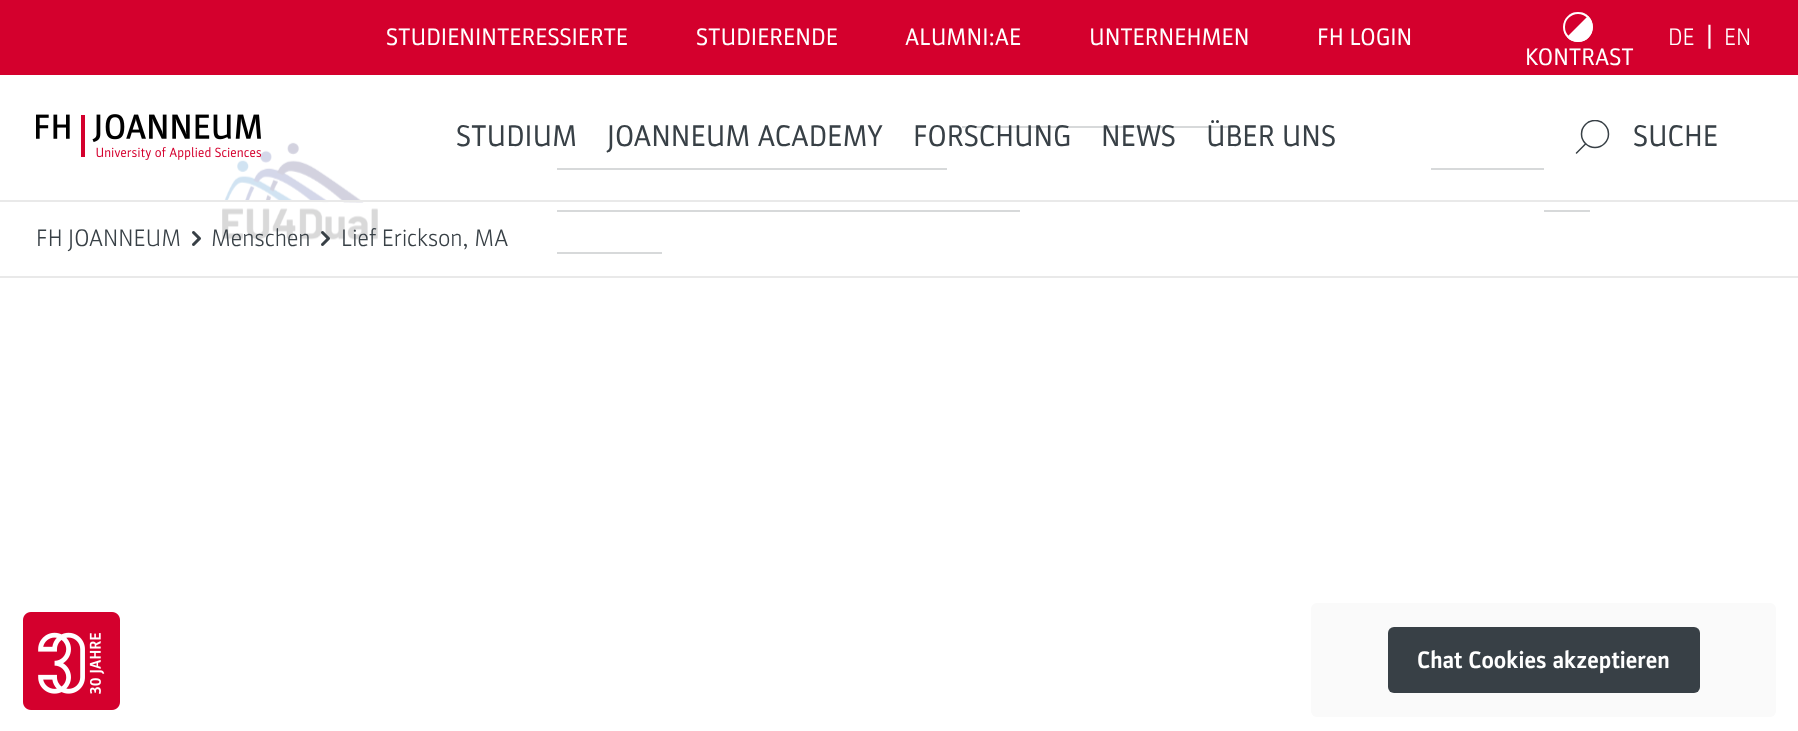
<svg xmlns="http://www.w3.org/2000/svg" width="1798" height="731">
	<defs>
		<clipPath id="clip1"><rect x="1563" y="12" width="33" height="33" /></clipPath>
		<clipPath id="clip2"><rect x="1575" y="120" width="35" height="35" /></clipPath>
	</defs>
	<rect width="100%" height="100%" fill="#FFFFFF" />
	<rect x="0" y="0" width="1798" height="75" fill="#D4002D" />
	<g font-family="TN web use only" font-size="24" fill="#FFFFFF">
		<text x="386" y="45">STUDIENINTERESSIERTE</text>
		<text x="696" y="45">STUDIERENDE</text>
		<text x="905" y="45">ALUMNI:AE</text>
		<text x="1089" y="45">UNTERNEHMEN</text>
		<text x="1317" y="45">FH LOGIN</text>
	</g>
	<text x="1668" y="45" font-family="TN web use only" font-size="24" font-weight="300" fill="#FFFFFF">DE</text>
	<text x="1706" y="45" font-family="TN web use only" font-size="27" fill="#FFFFFF">|</text>
	<text x="1724" y="45" font-family="TN web use only" font-size="24" font-weight="300" fill="#FFFFFF">EN</text>
	<path d="M1578 12C1597.5 12 1597.5 42 1578 42C1558.5 42 1558.5 12 1578 12Z" fill="#FFFFFF" />
	<g clip-path="url(#clip1)">
		<path d="M1567 37C1554 23 1574 3 1588 16Z" fill="#D4002D" />
	</g>
	<circle cx="1578" cy="27" r="14" fill="none" stroke="#FFFFFF" stroke-width="2" />
	<text x="1525" y="65" font-family="TN web use only" font-size="24" fill="#FFFFFF">KONTRAST</text>
	<image x="222" y="142" width="156" height="98" href="assets/img4.png" />
	<rect x="0" y="200" width="1798" height="2" fill="#E9E9E9" />
	<rect x="962" y="126" width="271" height="2" fill="#384046" />
	<rect x="557" y="168" width="390" height="2" fill="#384046" />
	<rect x="1431" y="168" width="113" height="2" fill="#384046" />
	<rect x="224" y="126" width="1320" height="74" fill="#FFFFFF" fill-opacity="0.8" />
	<image x="36" y="114" width="225" height="46" href="assets/img1.png" />
	<g font-family="TN web use only" font-size="30" fill="#384046">
		<text x="456" y="146">STUDIUM</text>
		<text x="607" y="146">JOANNEUM ACADEMY</text>
		<text x="913" y="146">FORSCHUNG</text>
		<text x="1101" y="146">NEWS</text>
		<text x="1206" y="146">ÜBER UNS</text>
	</g>
	<g clip-path="url(#clip2)">
		<circle cx="1595" cy="134" r="13.5" fill="none" stroke="#384046" stroke-width="1.5" />
	</g>
	<path d="M1585.5 144L1576.5 153" fill="none" stroke="#384046" stroke-width="1.5" stroke-linecap="round" />
	<text x="1633" y="146" font-family="TN web use only" font-size="30" fill="#384046">SUCHE</text>
	<rect x="0" y="276" width="1798" height="2" fill="#E9E9E9" />
	<rect x="557" y="210" width="463" height="2" fill="#384046" />
	<rect x="1544" y="210" width="46" height="2" fill="#384046" />
	<rect x="557" y="252" width="105" height="2" fill="#384046" />
	<rect x="222" y="202" width="1368" height="52" fill="#FFFFFF" fill-opacity="0.8" />
	<text x="36" y="246" font-family="TN web use only" font-size="24" font-weight="300" fill="#384046">FH JOANNEUM</text>
	<image x="192" y="231" width="9" height="15" href="assets/img2.png" />
	<text x="211" y="246" font-family="TN web use only" font-size="24" font-weight="300" fill="#384046">Menschen</text>
	<image x="321" y="231" width="9" height="15" href="assets/img3.png" />
	<text x="341" y="246" font-family="TN web use only" font-size="24" font-weight="300" fill="#384046">Lief Erickson, MA</text>
	<image x="23" y="612" width="97" height="98" href="assets/img5.png" />
	<rect x="1311" y="603" width="465" height="114" rx="6" fill="#FAFAFA" />
	<rect x="1388" y="627" width="312" height="66" rx="6" fill="#384046" />
	<text x="1417" y="668" font-family="TN web use only" font-size="24" font-weight="700" fill="#FFFFFF">Chat Cookies akzeptieren</text>
</svg>
